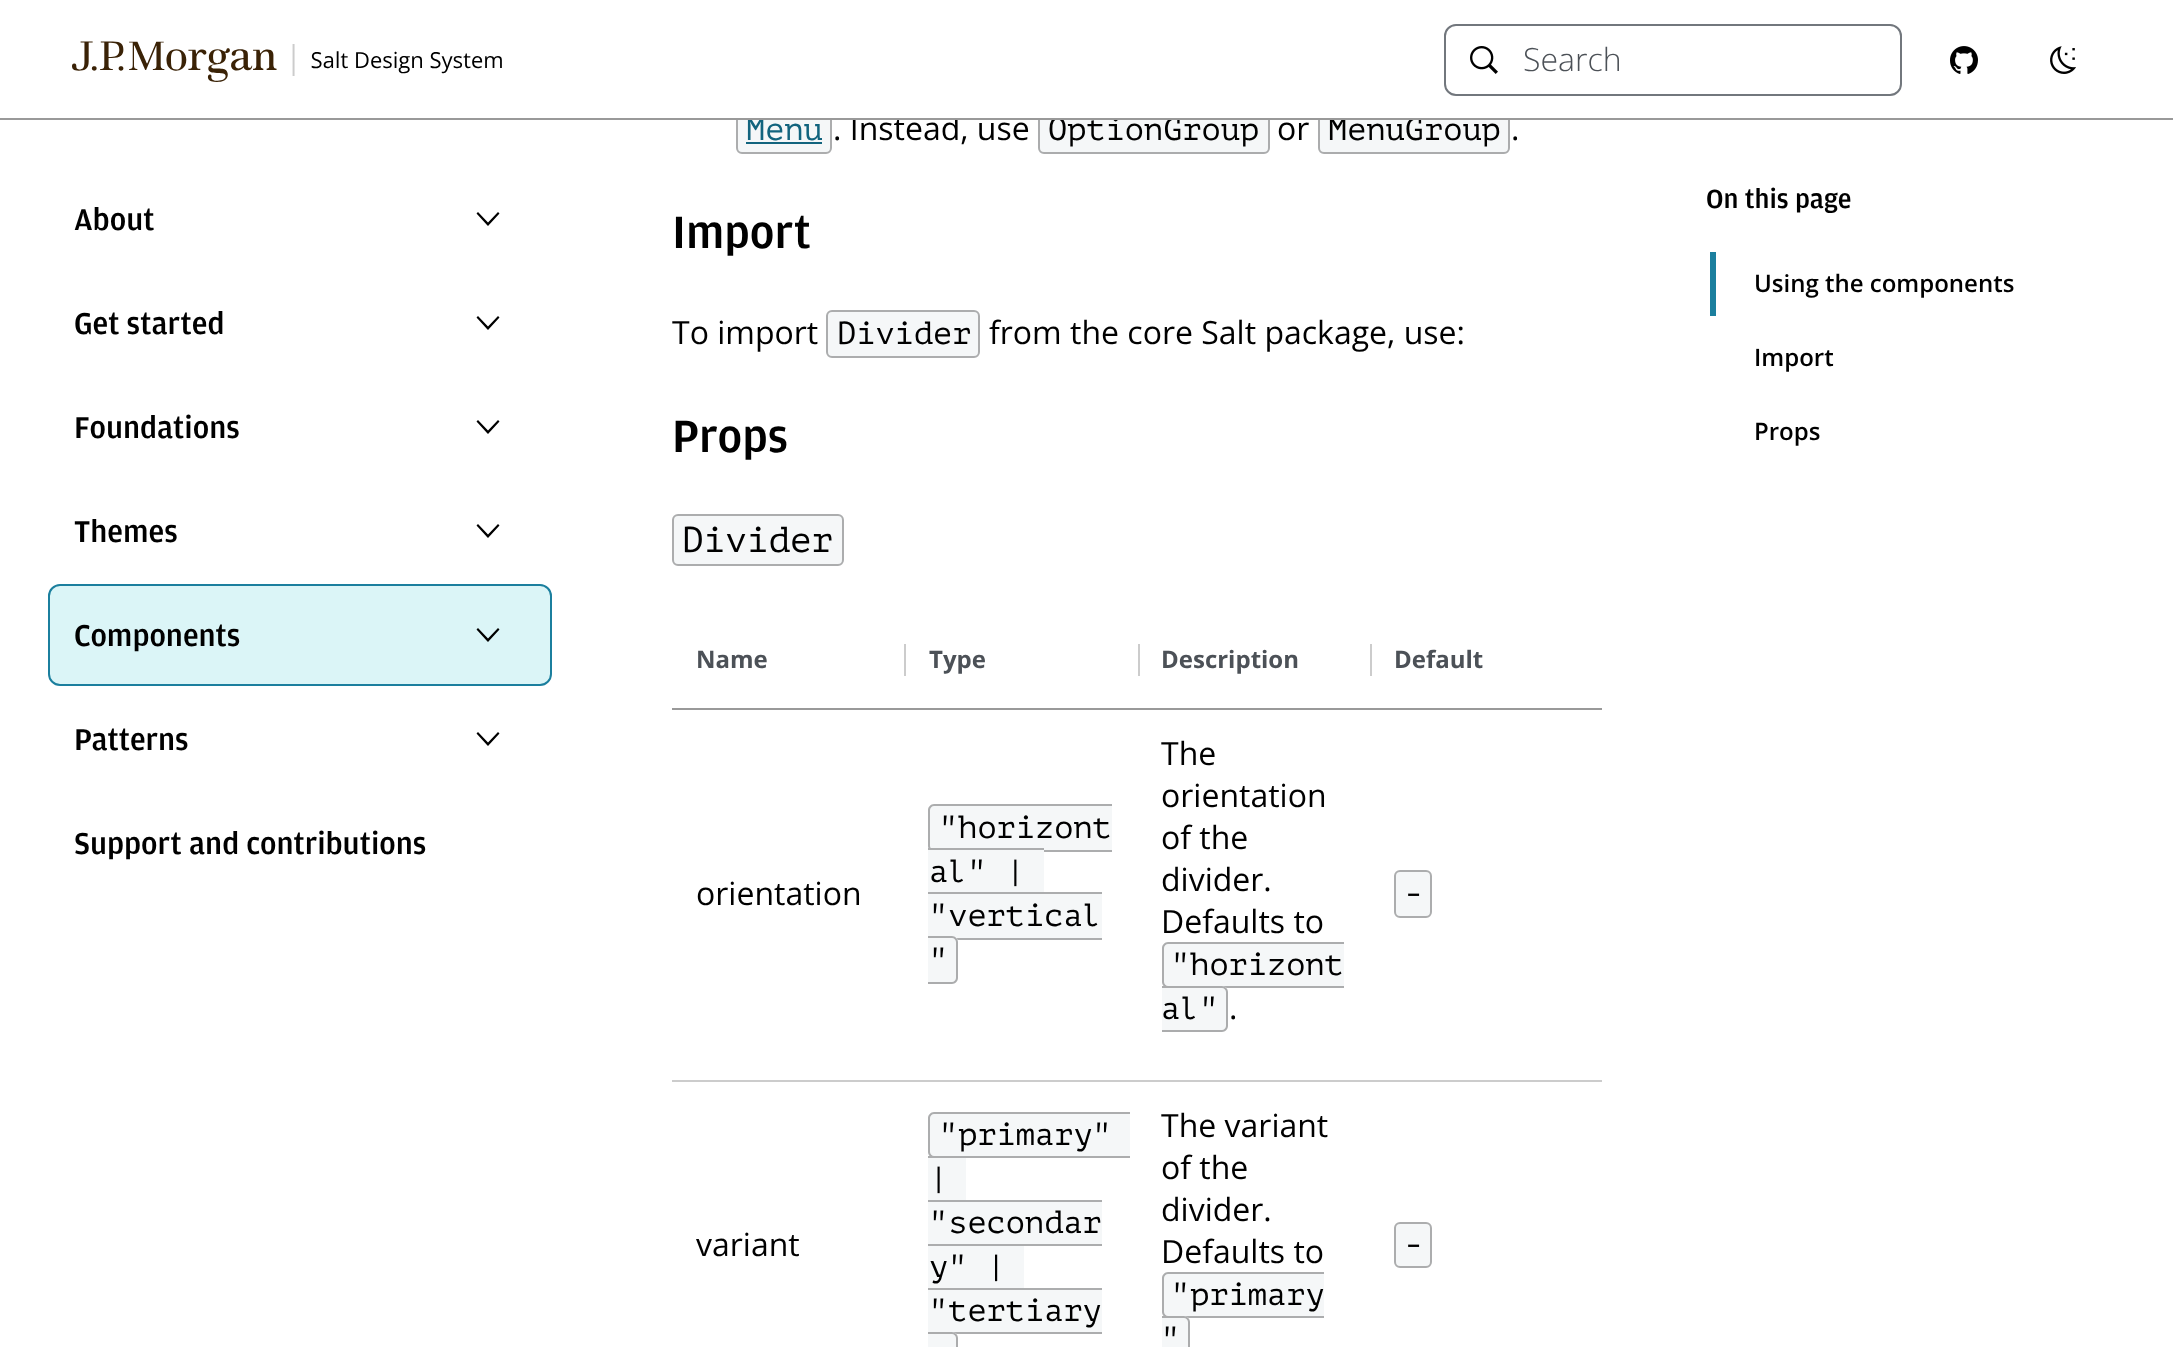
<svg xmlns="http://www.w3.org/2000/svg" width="2173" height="1347">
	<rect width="100%" height="100%" fill="#FFFFFF" />
	<rect x="737" y="107" width="94" height="46" rx="5" fill="#F5F7F8" stroke="#ACADAE" stroke-width="2" />
	<text x="746" y="140" font-family="PT Mono" font-size="32" fill="#12647E">Menu</text>
	<text x="833" y="140" font-family="Open Sans" font-size="32" fill="#000000">. Instead, use</text>
	<rect x="1038" y="106" width="232" height="48" rx="6" fill="#F5F7F8" />
	<rect x="1039" y="107" width="230" height="46" rx="5" fill="none" stroke="#000000" stroke-opacity="0.3" stroke-width="2" />
	<text x="1048" y="140" font-family="PT Mono" font-size="32" fill="#000000">OptionGroup</text>
	<rect x="1318" y="106" width="192" height="48" rx="6" fill="#F5F7F8" />
	<rect x="1319" y="107" width="190" height="46" rx="5" fill="none" stroke="#000000" stroke-opacity="0.3" stroke-width="2" />
	<text x="1328" y="140" font-family="PT Mono" font-size="32" fill="#000000">MenuGroup</text>
	<rect x="736" y="106" width="774" height="12" fill="#FFFFFF" />
	<rect x="0" y="118" width="2173" height="2" fill="#999999" />
	<image x="72" y="41" width="430" height="41" href="assets/img1.png" />
	<rect x="1445" y="25" width="456" height="70" rx="11" fill="none" stroke="#72777D" stroke-width="2" />
	<image x="1470" y="46" width="28" height="28" href="assets/img2.png" />
	<text x="1523" y="71" font-family="Open Sans" font-size="32" font-weight="300" fill="#4C5157">Search</text>
	<image x="1950" y="46" width="28" height="28" href="assets/img3.png" />
	<image x="2050" y="46" width="26" height="28" href="assets/img4.png" />
	<text x="74" y="230" font-family="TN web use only" font-size="32" font-weight="500" fill="#000000">About</text>
	<path d="M487 225L488 226L499.5 213.5L498 212L488 222.5L478 212L476.5 213.5Z" fill="#000000" />
	<text x="74" y="334" font-family="TN web use only" font-size="32" font-weight="500" fill="#000000">Get started</text>
	<path d="M487 329L488 330L499.5 317.5L498 316L488 326.5L478 316L476.5 317.5Z" fill="#000000" />
	<text x="74" y="438" font-family="TN web use only" font-size="32" font-weight="500" fill="#000000">Foundations</text>
	<path d="M487 433L488 434L499.5 421.5L498 420L488 430.5L478 420L476.5 421.5Z" fill="#000000" />
	<text x="74" y="542" font-family="TN web use only" font-size="32" font-weight="500" fill="#000000">Themes</text>
	<path d="M487 537L488 538L499.5 525.5L498 524L488 534.5L478 524L476.5 525.5Z" fill="#000000" />
	<rect x="49" y="585" width="502" height="100" rx="11" fill="#DBF5F7" stroke="#1B7F9E" stroke-width="2" />
	<text x="74" y="646" font-family="TN web use only" font-size="32" font-weight="500" fill="#000000">Components</text>
	<path d="M487 641L488 642L499.5 629.5L498 628L488 638.5L478 628L476.5 629.5Z" fill="#000000" />
	<text x="74" y="750" font-family="TN web use only" font-size="32" font-weight="500" fill="#000000">Patterns</text>
	<path d="M487 745L488 746L499.5 733.5L498 732L488 742.5L478 732L476.5 733.5Z" fill="#000000" />
	<text x="74" y="854" font-family="TN web use only" font-size="32" font-weight="500" fill="#000000">Support and contributions</text>
	<rect x="746" y="142" width="76" height="2" fill="#12647E" />
	<g font-family="Open Sans" font-size="32" fill="#000000">
		<text x="1277" y="140">or</text>
		<text x="1511" y="140">.</text>
	</g>
	<text x="672" y="248" font-family="TN web use only" font-size="48" font-weight="500" fill="#000000">Import</text>
	<text x="672" y="344" font-family="Open Sans" font-size="32" fill="#000000">To import</text>
	<rect x="827" y="311" width="152" height="46" rx="5" fill="#F5F7F8" stroke="#ACADAE" stroke-width="2" />
	<text x="837" y="344" font-family="PT Mono" font-size="32" fill="#000000">Divider</text>
	<text x="989" y="344" font-family="Open Sans" font-size="32" fill="#000000">from the core Salt package, use:</text>
	<text x="672" y="452" font-family="TN web use only" font-size="48" font-weight="500" fill="#000000">Props</text>
	<rect x="673" y="515" width="170" height="50" rx="5" fill="#F5F7F8" stroke="#ACADAE" stroke-width="2" />
	<text x="682" y="552" font-family="PT Mono" font-size="36" fill="#000000">Divider</text>
	<rect x="672" y="708" width="930" height="2" fill="#999999" />
	<text x="696" y="668" font-family="Open Sans" font-size="24" font-weight="700" fill="#4C5157">Name</text>
	<rect x="904" y="644" width="2" height="32" fill="#CCCCCC" />
	<text x="929" y="668" font-family="Open Sans" font-size="24" font-weight="700" fill="#4C5157">Type</text>
	<rect x="1138" y="644" width="2" height="32" fill="#CCCCCC" />
	<text x="1161" y="668" font-family="Open Sans" font-size="24" font-weight="700" fill="#4C5157">Description</text>
	<rect x="1370" y="644" width="2" height="32" fill="#CCCCCC" />
	<text x="1394" y="668" font-family="Open Sans" font-size="24" font-weight="700" fill="#4C5157">Default</text>
	<rect x="672" y="1080" width="930" height="2" fill="#CCCCCC" />
	<text x="696" y="905" font-family="Open Sans" font-size="32" fill="#000000">orientation</text>
	<path d="M934 804H1112V852H934C930.5 852 928 849.5 928 846V810C928 806.5 930.5 804 934 804Z" fill="#F5F7F8" />
	<path d="M934 804H1112V852H934C931 852 928 849 928 846V810C928 807 931 804 934 804ZM934 806H1112V850H934C932 850 930 848 930 846V810C930 808 932 806 934 806Z" fill="#ACADAE" fill-rule="evenodd" />
	<text x="939" y="838" font-family="PT Mono" font-size="32" fill="#000000">"horizont</text>
	<rect x="928" y="848" width="116" height="2" fill="#ACADAE" />
	<rect x="928" y="850" width="116" height="42" fill="#F5F7F8" />
	<text x="929" y="882" font-family="PT Mono" font-size="32" fill="#000000">al" |</text>
	<rect x="928" y="892" width="174" height="2" fill="#ACADAE" />
	<rect x="928" y="894" width="174" height="44" fill="#F5F7F8" />
	<text x="929" y="926" font-family="PT Mono" font-size="32" fill="#000000">"vertical</text>
	<rect x="956" y="938" width="146" height="2" fill="#ACADAE" />
	<path d="M928 936H952C955.5 936 958 938.5 958 942V978C958 981.5 955.5 984 952 984H928Z" fill="#F5F7F8" />
	<path d="M928 936H952C955 936 958 939 958 942V978C958 981 955 984 952 984H928ZM928 938H952C954 938 956 940 956 942V978C956 980 954 982 952 982H928Z" fill="#000000" fill-opacity="0.3" fill-rule="evenodd" />
	<text x="929" y="970" font-family="PT Mono" font-size="32" fill="#000000">"</text>
	<g font-family="Open Sans" font-size="32" fill="#000000">
		<text x="1161" y="765">The</text>
		<text x="1161" y="807">orientation</text>
		<text x="1161" y="849">of the</text>
		<text x="1161" y="891">divider.</text>
		<text x="1161" y="933">Defaults to</text>
	</g>
	<path d="M1168 942H1344V988H1168C1164.5 988 1162 985.5 1162 982V948C1162 944.5 1164.5 942 1168 942Z" fill="#F5F7F8" />
	<path d="M1168 942H1344V988H1168C1165 988 1162 985 1162 982V948C1162 945 1165 942 1168 942ZM1168 944H1344V986H1168C1166 986 1164 984 1164 982V948C1164 946 1166 944 1168 944Z" fill="#ACADAE" fill-rule="evenodd" />
	<text x="1171" y="975" font-family="PT Mono" font-size="32" fill="#000000">"horizont</text>
	<path d="M1162 986H1222C1225.5 986 1228 988.5 1228 992V1026C1228 1029.5 1225.5 1032 1222 1032H1162Z" fill="#F5F7F8" />
	<path d="M1162 986H1222C1225 986 1228 989 1228 992V1026C1228 1029 1225 1032 1222 1032H1162ZM1162 988H1222C1224 988 1226 990 1226 992V1026C1226 1028 1224 1030 1222 1030H1162Z" fill="#000000" fill-opacity="0.3" fill-rule="evenodd" />
	<text x="1161" y="1019" font-family="PT Mono" font-size="32" fill="#000000">al"</text>
	<text x="1229" y="1019" font-family="Open Sans" font-size="32" fill="#000000">.</text>
	<rect x="1395" y="871" width="36" height="46" rx="5" fill="#F5F7F8" stroke="#ACADAE" stroke-width="2" />
	<text x="1404" y="904" font-family="PT Mono" font-size="32" fill="#000000">-</text>
	<text x="696" y="1256" font-family="Open Sans" font-size="32" fill="#000000">variant</text>
	<path d="M934 1112H1112V1158H934C930.5 1158 928 1155.5 928 1152V1118C928 1114.5 930.5 1112 934 1112Z" fill="#F5F7F8" />
	<path d="M934 1112H1112V1158H934C931 1158 928 1155 928 1152V1118C928 1115 931 1112 934 1112ZM934 1114H1112V1156H934C932 1156 930 1154 930 1152V1118C930 1116 932 1114 934 1114Z" fill="#ACADAE" fill-rule="evenodd" />
	<text x="939" y="1145" font-family="PT Mono" font-size="32" fill="#000000">"primary"</text>
	<rect x="1112" y="1114" width="18" height="42" fill="#F5F7F8" />
	<rect x="1112" y="1112" width="18" height="2" fill="#ACADAE" />
	<rect x="1112" y="1156" width="18" height="2" fill="#ACADAE" />
	<rect x="928" y="1156" width="6" height="2" fill="#ACADAE" />
	<rect x="928" y="1158" width="38" height="42" fill="#F5F7F8" />
	<text x="929" y="1189" font-family="PT Mono" font-size="32" fill="#000000">|</text>
	<rect x="928" y="1200" width="174" height="2" fill="#ACADAE" />
	<rect x="928" y="1202" width="174" height="42" fill="#F5F7F8" />
	<text x="929" y="1233" font-family="PT Mono" font-size="32" fill="#000000">"secondar</text>
	<rect x="1024" y="1244" width="78" height="2" fill="#ACADAE" />
	<rect x="928" y="1244" width="96" height="2" fill="#ACADAE" />
	<rect x="928" y="1246" width="96" height="42" fill="#F5F7F8" />
	<text x="929" y="1277" font-family="PT Mono" font-size="32" fill="#000000">y" |</text>
	<rect x="928" y="1288" width="174" height="2" fill="#ACADAE" />
	<rect x="928" y="1290" width="174" height="42" fill="#F5F7F8" />
	<text x="929" y="1321" font-family="PT Mono" font-size="32" fill="#000000">"tertiary</text>
	<rect x="952" y="1332" width="150" height="2" fill="#ACADAE" />
	<path d="M928 1332H952C955.5 1332 958 1334.5 958 1338V1347C958 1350.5 955.5 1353 952 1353H928Z" fill="#F5F7F8" />
	<path d="M928 1332H952C955 1332 958 1335 958 1338V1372C958 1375 955 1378 952 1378H928ZM928 1334H952C954 1334 956 1336 956 1338V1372C956 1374 954 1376 952 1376H928Z" fill="#000000" fill-opacity="0.3" fill-rule="evenodd" />
	<g font-family="Open Sans" font-size="32" fill="#000000">
		<text x="1161" y="1137">The variant</text>
		<text x="1161" y="1179">of the</text>
		<text x="1161" y="1221">divider.</text>
		<text x="1161" y="1263">Defaults to</text>
	</g>
	<path d="M1168 1272H1324V1318H1168C1164.5 1318 1162 1315.5 1162 1312V1278C1162 1274.5 1164.5 1272 1168 1272Z" fill="#F5F7F8" />
	<path d="M1168 1272H1324V1318H1168C1165 1318 1162 1315 1162 1312V1278C1162 1275 1165 1272 1168 1272ZM1168 1274H1324V1316H1168C1166 1316 1164 1314 1164 1312V1278C1164 1276 1166 1274 1168 1274Z" fill="#ACADAE" fill-rule="evenodd" />
	<text x="1171" y="1305" font-family="PT Mono" font-size="32" fill="#000000">"primary</text>
	<path d="M1162 1316H1184C1187.5 1316 1190 1318.5 1190 1322V1347C1190 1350.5 1187.5 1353 1184 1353H1162Z" fill="#F5F7F8" />
	<path d="M1162 1316H1184C1187 1316 1190 1319 1190 1322V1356C1190 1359 1187 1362 1184 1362H1162ZM1162 1318H1184C1186 1318 1188 1320 1188 1322V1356C1188 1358 1186 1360 1184 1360H1162Z" fill="#000000" fill-opacity="0.3" fill-rule="evenodd" />
	<text x="1161" y="1349" font-family="PT Mono" font-size="32" fill="#000000">"</text>
	<rect x="1395" y="1223" width="36" height="44" rx="5" fill="#F5F7F8" stroke="#ACADAE" stroke-width="2" />
	<text x="1404" y="1255" font-family="PT Mono" font-size="32" fill="#000000">-</text>
	<text x="1706" y="208" font-family="TN web use only" font-size="28" font-weight="500" fill="#000000">On this page</text>
	<rect x="1710" y="252" width="6" height="64" fill="#1B7F9E" />
	<g font-family="Open Sans" font-size="24" font-weight="600" fill="#000000">
		<text x="1754" y="292">Using the components</text>
		<text x="1754" y="366">Import</text>
		<text x="1754" y="440">Props</text>
	</g>
</svg>
